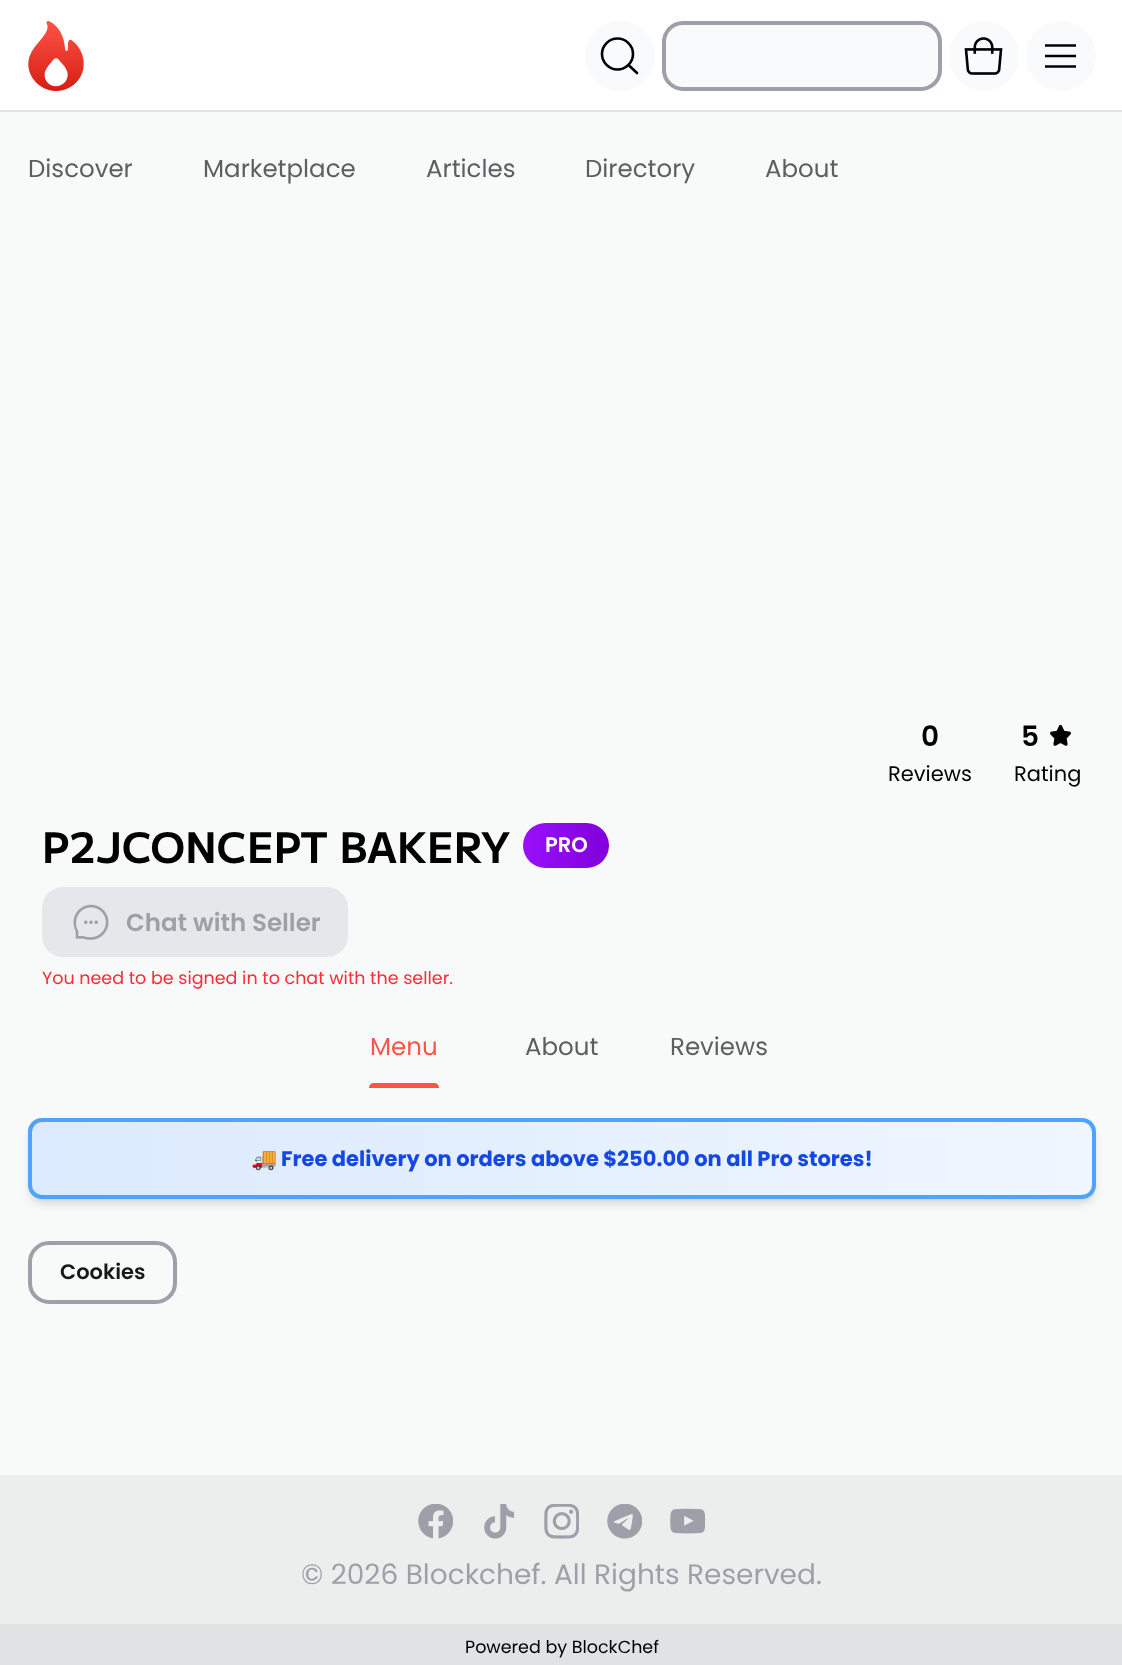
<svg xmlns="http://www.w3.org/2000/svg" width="1122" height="1665">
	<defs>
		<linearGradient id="g1" gradientUnits="userSpaceOnUse" x1="523" y1="845" x2="609" y2="845"><stop offset="0" stop-color="#9810FA" /><stop offset="1" stop-color="#8200DB" /></linearGradient>
		<clipPath id="clip1"><rect x="28" y="1118" width="1068" height="81" rx="14" /></clipPath>
		<linearGradient id="g2" gradientUnits="userSpaceOnUse" x1="32" y1="1159" x2="1092" y2="1159"><stop offset="0" stop-color="#DBEAFE" /><stop offset="1" stop-color="#EFF6FF" /></linearGradient>
	</defs>
	<rect width="100%" height="100%" fill="#F8FAFA" />
	<rect x="0" y="0" width="1122" height="110" fill="#FFFFFF" />
	<rect x="0" y="110" width="1122" height="2" fill="#E0E3E3" />
	<image x="28" y="21" width="56" height="70" href="assets/img1.png" />
	<circle cx="620" cy="56" r="35" fill="#F9FAFB" />
	<path d="M617.5 69.5C626 69.5 633 62.5 633 54C633 45.5 626 38.5 617.5 38.5C609 38.5 602 45.5 602 54C602 62.5 609 69.5 617.5 69.5ZM637 73L628.5 65" fill="none" stroke="#000000" stroke-width="2.6" stroke-linecap="round" stroke-linejoin="round" />
	<rect x="664" y="23" width="276" height="66" rx="19" fill="#F9FAFB" stroke="#9F9FA9" stroke-width="4" />
	<circle cx="984" cy="56" r="35" fill="#F9FAFB" />
	<image x="964" y="37" width="39" height="38" href="assets/img2.png" />
	<circle cx="1061" cy="56" r="35" fill="#F9FAFB" />
	<path d="M1045 45.5H1076M1045 56H1076M1045 66.5H1076" fill="none" stroke="#000000" stroke-width="2.6" />
	<g font-family="Poppins" font-size="24.5" fill="#5C5F5F">
		<text x="28" y="177">Discover</text>
		<text x="203" y="177">Marketplace</text>
		<text x="426" y="177">Articles</text>
		<text x="585" y="177">Directory</text>
		<text x="765" y="177">About</text>
	</g>
	<text x="921" y="746" font-family="Poppins" font-size="28" font-weight="600" fill="#000000">0</text>
	<text x="888" y="781" font-family="Poppins" font-size="21" fill="#000000">Reviews</text>
	<text x="1021" y="746" font-family="Poppins" font-size="28" font-weight="600" fill="#000000">5</text>
	<image x="1050" y="724" width="21" height="22" href="assets/img3.png" />
	<text x="1014" y="781" font-family="Poppins" font-size="21" fill="#000000">Rating</text>
	<text x="42" y="863" font-family="'M PLUS 1'" font-size="42" font-weight="700" fill="#000000">P2JCONCEPT BAKERY</text>
	<rect x="523" y="823" width="86" height="45" rx="22.5" fill="url(#g1)" />
	<text x="545" y="852" font-family="Poppins" font-size="21" font-weight="600" fill="#FFFFFF">PRO</text>
	<rect x="42" y="887" width="306" height="70" rx="21" fill="#E5E7EB" />
	<image x="73" y="904" width="36" height="36" href="assets/img4.png" />
	<text x="126" y="931" font-family="Poppins" font-size="24.5" font-weight="600" fill="#9F9FA9">Chat with Seller</text>
	<text x="42" y="984" font-family="Poppins" font-size="17.5" fill="#FB2C36">You need to be signed in to chat with the seller.</text>
	<text x="370" y="1055" font-family="Poppins" font-size="24.5" fill="#FF5447">Menu</text>
	<path d="M374 1083H434C437 1083 439 1085 439 1088H369C369 1085 371 1083 374 1083Z" fill="#FF5447" />
	<g font-family="Poppins" font-size="24.5" fill="#5C5F5F">
		<text x="525" y="1055">About</text>
		<text x="670" y="1055">Reviews</text>
	</g>
	<rect x="32" y="1125" width="1060" height="74" rx="11" fill="#000000" fill-opacity="0.1" filter="blur(3.5px)" />
	<rect x="30" y="1127" width="1064" height="77" rx="12" fill="#000000" fill-opacity="0.1" filter="blur(5px)" />
	<g clip-path="url(#clip1)">
		<rect x="32" y="1118" width="1060" height="81" fill="url(#g2)" />
	</g>
	<rect x="30" y="1120" width="1064" height="77" rx="12" fill="none" stroke="#51A2FF" stroke-width="4" />
	<text x="251" y="1166" font-family="Noto Color Emoji" font-size="21" font-weight="700" fill="#1447E6">🚚</text>
	<text x="281" y="1166" font-family="Poppins" font-size="21" font-weight="700" fill="#1447E6">Free delivery on orders above $250.00 on all Pro stores!</text>
	<rect x="30" y="1243" width="145" height="59" rx="19" fill="none" stroke="#9F9FA9" stroke-width="4" />
	<text x="60" y="1279" font-family="Poppins" font-size="21" font-weight="600" fill="#18181B">Cookies</text>
	<rect x="0" y="1475" width="1122" height="149" fill="#ECEEEE" />
	<image x="418" y="1504" width="35" height="35" href="assets/img5.png" />
	<image x="484" y="1504" width="31" height="35" href="assets/img6.png" />
	<image x="544" y="1504" width="35" height="35" href="assets/img7.png" />
	<image x="607" y="1504" width="35" height="35" href="assets/img8.png" />
	<image x="670" y="1508" width="35" height="26" href="assets/img9.png" />
	<text x="301" y="1584" font-family="Poppins" font-size="28" fill="#9F9FA9">© 2026 Blockchef. All Rights Reserved.</text>
	<rect x="0" y="1624" width="1122" height="41" fill="#E0E3E3" />
	<text x="465" y="1653" font-family="Poppins" font-size="17.5" fill="#000000">Powered by BlockChef</text>
</svg>
